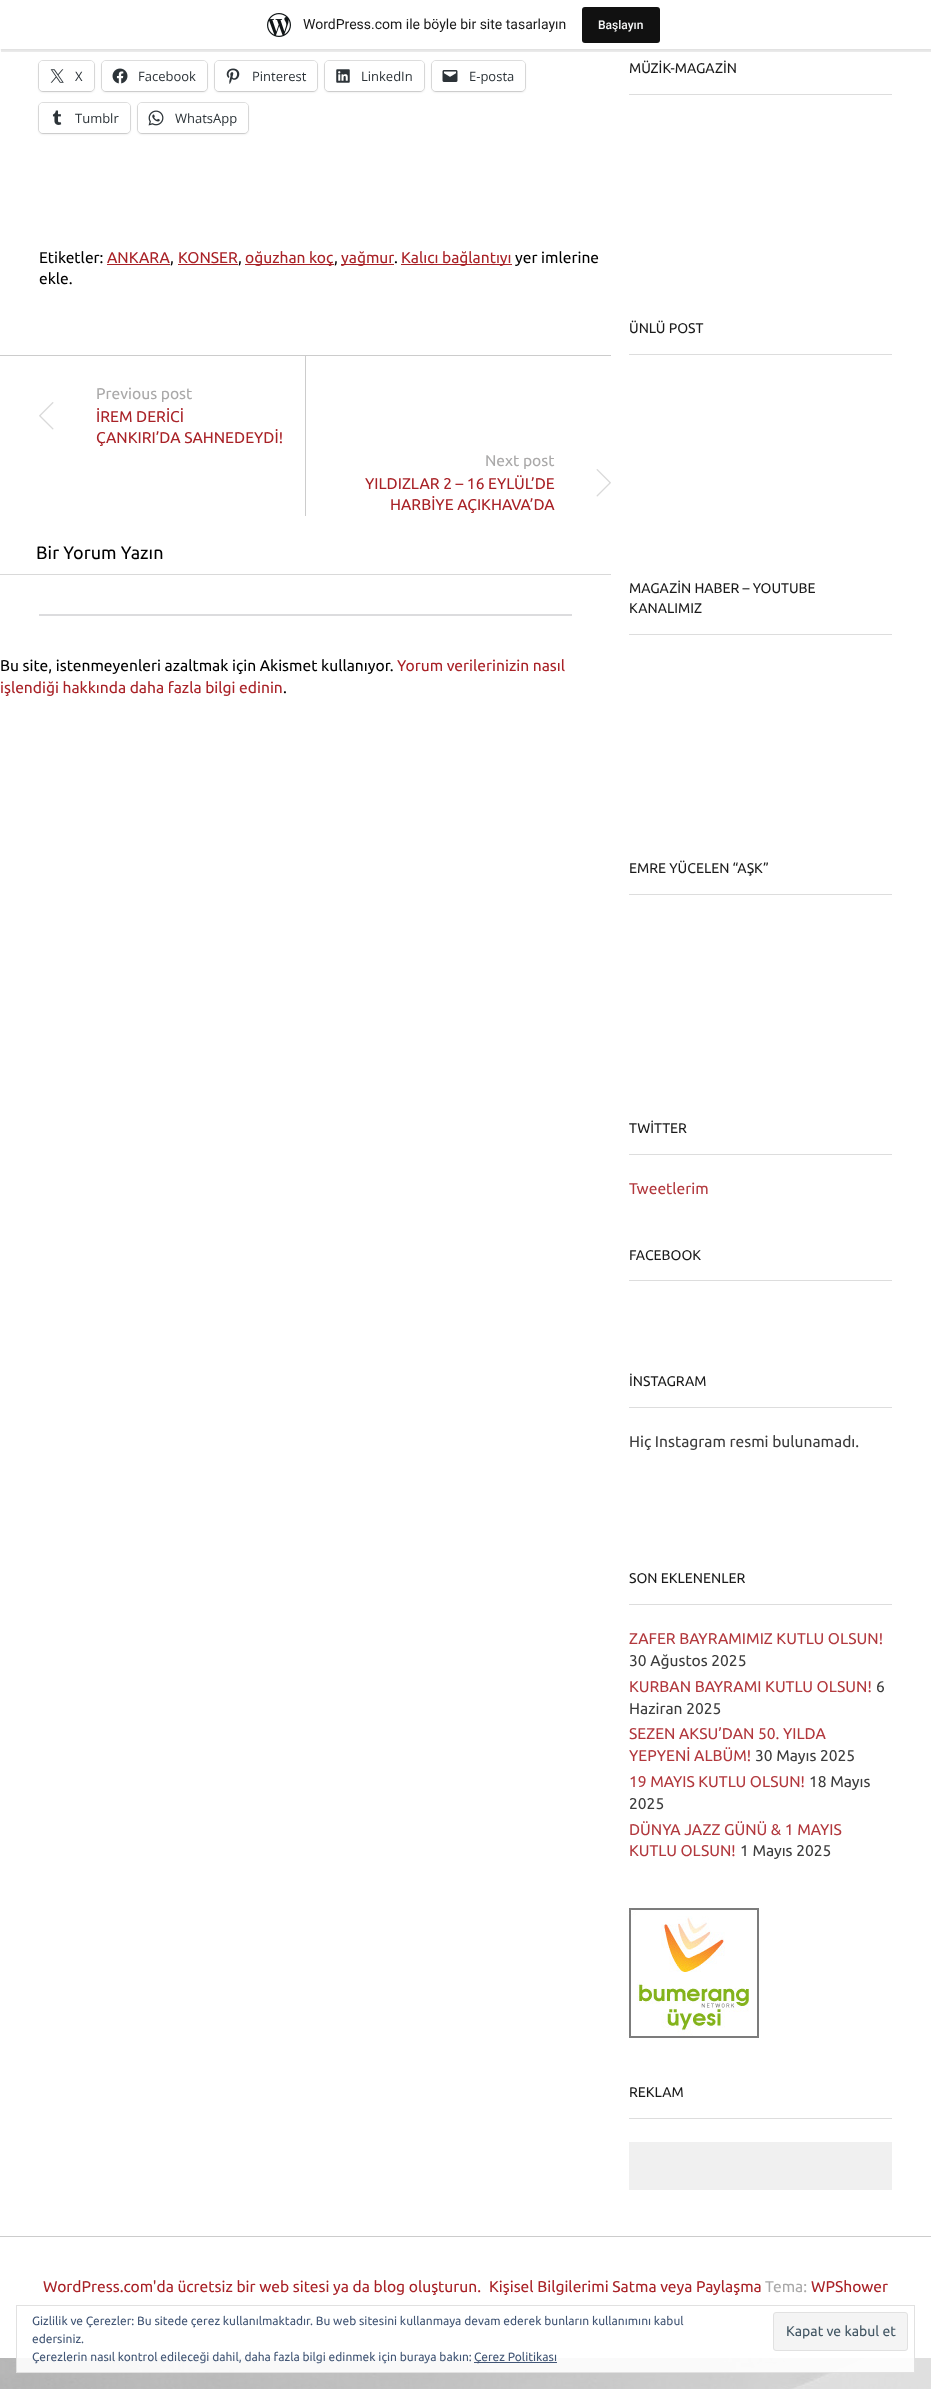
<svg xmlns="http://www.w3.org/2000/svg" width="931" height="2389">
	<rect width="100%" height="100%" fill="#FFFFFF" />
	<image x="0" y="2358" width="931" height="31" href="assets/img1.png" />
	<rect x="0" y="1" width="931" height="49" fill="#000000" fill-opacity="0.05" filter="blur(1px)" />
	<path d="M1 49V52H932V3H931V49Z" fill="#000000" fill-opacity="0.08" />
	<rect x="0" y="0" width="931" height="49" fill="#FFFFFF" />
	<image x="267" y="13" width="24" height="24" href="assets/img2.png" />
	<text x="303" y="29" font-family="Roboto" font-size="14" fill="#1A1A1A">WordPress.com ile böyle bir site tasarlayın</text>
	<rect x="582" y="7" width="78" height="36" rx="3" fill="#111111" />
	<text x="598" y="29" font-family="Roboto" font-size="12" font-weight="500" fill="#F6F7F7">Başlayın</text>
	<rect x="38.5" y="60.5" width="56" height="31" rx="4.5" fill="none" stroke="#E0E0E0" />
	<rect x="39" y="62" width="55" height="30" rx="4" fill="#000000" fill-opacity="0.12" filter="blur(1px)" />
	<rect x="39" y="61" width="55" height="30" rx="4" fill="#FFFFFF" />
	<image x="50" y="69" width="14" height="14" href="assets/img3.png" />
	<text x="75" y="81" font-family="Open Sans" font-size="13" fill="#2C3338">X</text>
	<rect x="101.5" y="60.5" width="106" height="31" rx="4.5" fill="none" stroke="#E0E0E0" />
	<rect x="102" y="62" width="105" height="30" rx="4" fill="#000000" fill-opacity="0.12" filter="blur(1px)" />
	<rect x="102" y="61" width="105" height="30" rx="4" fill="#FFFFFF" />
	<image x="112" y="68" width="16" height="16" href="assets/img4.png" />
	<text x="138" y="81" font-family="Open Sans" font-size="13" fill="#2C3338">Facebook</text>
	<rect x="214.5" y="60.5" width="103" height="31" rx="4.5" fill="none" stroke="#E0E0E0" />
	<rect x="215" y="62" width="102" height="30" rx="4" fill="#000000" fill-opacity="0.12" filter="blur(1px)" />
	<rect x="215" y="61" width="102" height="30" rx="4" fill="#FFFFFF" />
	<image x="226" y="68" width="14" height="16" href="assets/img5.png" />
	<text x="252" y="81" font-family="Open Sans" font-size="13" fill="#2C3338">Pinterest</text>
	<rect x="324.5" y="60.5" width="100" height="31" rx="4.5" fill="none" stroke="#E0E0E0" />
	<rect x="325" y="62" width="99" height="30" rx="4" fill="#000000" fill-opacity="0.12" filter="blur(1px)" />
	<rect x="325" y="61" width="99" height="30" rx="4" fill="#FFFFFF" />
	<image x="336" y="69" width="14" height="14" href="assets/img6.png" />
	<text x="361" y="81" font-family="Open Sans" font-size="13" fill="#2C3338">LinkedIn</text>
	<rect x="431.5" y="60.5" width="94" height="31" rx="4.5" fill="none" stroke="#E0E0E0" />
	<rect x="432" y="62" width="93" height="30" rx="4" fill="#000000" fill-opacity="0.12" filter="blur(1px)" />
	<rect x="432" y="61" width="93" height="30" rx="4" fill="#FFFFFF" />
	<image x="442" y="70" width="16" height="12" href="assets/img7.png" />
	<text x="469" y="81" font-family="Open Sans" font-size="13" fill="#2C3338">E-posta</text>
	<rect x="38.5" y="102.5" width="92" height="31" rx="4.5" fill="none" stroke="#E0E0E0" />
	<rect x="39" y="104" width="91" height="30" rx="4" fill="#000000" fill-opacity="0.12" filter="blur(1px)" />
	<rect x="39" y="103" width="91" height="30" rx="4" fill="#FFFFFF" />
	<image x="52" y="110" width="10" height="15" href="assets/img8.png" />
	<text x="75" y="123" font-family="Open Sans" font-size="13" fill="#2C3338">Tumblr</text>
	<rect x="137.5" y="102.5" width="111" height="31" rx="4.5" fill="none" stroke="#E0E0E0" />
	<rect x="138" y="104" width="110" height="30" rx="4" fill="#000000" fill-opacity="0.12" filter="blur(1px)" />
	<rect x="138" y="103" width="110" height="30" rx="4" fill="#FFFFFF" />
	<image x="148" y="110" width="16" height="16" href="assets/img9.png" />
	<text x="175" y="123" font-family="Open Sans" font-size="13" fill="#2C3338">WhatsApp</text>
	<text x="39" y="263" font-family="Ubuntu" font-size="15.6" fill="#000000">Etiketler:</text>
	<text x="107" y="263" font-family="Ubuntu" font-size="15.6" fill="#A92227">ANKARA</text>
	<rect x="107" y="264" width="63" height="1" fill="#A92227" />
	<text x="178" y="263" font-family="Ubuntu" font-size="15.6" fill="#A92227">KONSER</text>
	<rect x="178" y="264" width="60" height="1" fill="#A92227" />
	<rect x="245" y="264" width="89" height="1" fill="#A92227" />
	<text x="245" y="263" font-family="Ubuntu" font-size="15.6" fill="#A92227">oğuzhan koç</text>
	<rect x="341" y="264" width="53" height="1" fill="#A92227" />
	<text x="341" y="263" font-family="Ubuntu" font-size="15.6" fill="#A92227">yağmur</text>
	<rect x="401" y="264" width="111" height="1" fill="#A92227" />
	<text x="401" y="263" font-family="Ubuntu" font-size="15.6" fill="#A92227">Kalıcı bağlantıyı</text>
	<g font-family="Ubuntu" font-size="15.6" fill="#000000">
		<text x="515" y="263">yer imlerine</text>
		<text x="170" y="263">,</text>
		<text x="238" y="263">,</text>
		<text x="334" y="263">,</text>
		<text x="394" y="263">.</text>
		<text x="39" y="284">ekle.</text>
	</g>
	<rect x="0" y="355" width="611" height="1" fill="#CCCCCC" />
	<image x="39" y="402" width="15" height="28" href="assets/img10.png" />
	<text x="96" y="399" font-family="Ubuntu" font-size="15.6" fill="#AAA9A9">Previous post</text>
	<g font-family="Ubuntu" font-size="15.6" fill="#A92227">
		<text x="96" y="422">İREM DERİCİ</text>
		<text x="96" y="443">ÇANKIRI’DA SAHNEDEYDİ!</text>
	</g>
	<rect x="305" y="356" width="1" height="160" fill="#CCCCCC" />
	<image x="596" y="469" width="15" height="28" href="assets/img11.png" />
	<text x="485" y="466" font-family="Ubuntu" font-size="15.6" fill="#AAA9A9">Next post</text>
	<g font-family="Ubuntu" font-size="15.6" fill="#A92227">
		<text x="365" y="489">YILDIZLAR 2 – 16 EYLÜL’DE</text>
		<text x="390" y="510">HARBİYE AÇIKHAVA’DA</text>
	</g>
	<rect x="0" y="574" width="611" height="1" fill="#D9D9D9" />
	<text x="36" y="559" font-family="Ubuntu" font-size="18" fill="#000000">Bir Yorum Yazın</text>
	<rect x="39" y="614" width="533" height="2" fill="#DCDCDE" />
	<text x="0" y="671" font-family="Ubuntu" font-size="15.6" fill="#000000">Bu site, istenmeyenleri azaltmak için Akismet kullanıyor.</text>
	<g font-family="Ubuntu" font-size="15.6" fill="#A92227">
		<text x="397" y="671">Yorum verilerinizin nasıl</text>
		<text x="0" y="693">işlendiği hakkında daha fazla bilgi edinin</text>
	</g>
	<text x="283" y="693" font-family="Ubuntu" font-size="15.6" fill="#000000">.</text>
	<rect x="629" y="94" width="263" height="1" fill="#DDDDDD" />
	<text x="629" y="73" font-family="Ubuntu" font-size="14" fill="#1A1A1A">MÜZİK-MAGAZİN</text>
	<rect x="629" y="354" width="263" height="1" fill="#DDDDDD" />
	<text x="629" y="333" font-family="Ubuntu" font-size="14" fill="#1A1A1A">ÜNLÜ POST</text>
	<rect x="629" y="634" width="263" height="1" fill="#DDDDDD" />
	<g font-family="Ubuntu" font-size="14" fill="#1A1A1A">
		<text x="629" y="593">MAGAZİN HABER – YOUTUBE</text>
		<text x="629" y="613">KANALIMIZ</text>
	</g>
	<rect x="629" y="894" width="263" height="1" fill="#DDDDDD" />
	<text x="629" y="873" font-family="Ubuntu" font-size="14" fill="#1A1A1A">EMRE YÜCELEN “AŞK”</text>
	<rect x="629" y="1154" width="263" height="1" fill="#DDDDDD" />
	<text x="629" y="1133" font-family="Ubuntu" font-size="14" fill="#1A1A1A">TWİTTER</text>
	<text x="629" y="1194" font-family="Ubuntu" font-size="15.6" fill="#B2383D">Tweetlerim</text>
	<rect x="629" y="1280" width="263" height="1" fill="#DDDDDD" />
	<text x="629" y="1260" font-family="Ubuntu" font-size="14" fill="#1A1A1A">FACEBOOK</text>
	<rect x="629" y="1407" width="263" height="1" fill="#DDDDDD" />
	<text x="629" y="1386" font-family="Ubuntu" font-size="14" fill="#1A1A1A">İNSTAGRAM</text>
	<text x="629" y="1447" font-family="Ubuntu" font-size="15.6" fill="#3C3C3C">Hiç Instagram resmi bulunamadı.</text>
	<rect x="629" y="1604" width="263" height="1" fill="#DDDDDD" />
	<text x="629" y="1583" font-family="Ubuntu" font-size="14" fill="#1A1A1A">SON EKLENENLER</text>
	<text x="629" y="1644" font-family="Ubuntu" font-size="15.6" fill="#B2383D">ZAFER BAYRAMIMIZ KUTLU OLSUN!</text>
	<text x="629" y="1666" font-family="Ubuntu" font-size="15.6" fill="#3C3C3C">30 Ağustos 2025</text>
	<text x="629" y="1692" font-family="Ubuntu" font-size="15.6" fill="#B2383D">KURBAN BAYRAMI KUTLU OLSUN!</text>
	<g font-family="Ubuntu" font-size="15.6" fill="#3C3C3C">
		<text x="876" y="1692">6</text>
		<text x="629" y="1714">Haziran 2025</text>
	</g>
	<g font-family="Ubuntu" font-size="15.6" fill="#B2383D">
		<text x="629" y="1739">SEZEN AKSU’DAN 50. YILDA</text>
		<text x="629" y="1761">YEPYENİ ALBÜM!</text>
	</g>
	<text x="755" y="1761" font-family="Ubuntu" font-size="15.6" fill="#3C3C3C">30 Mayıs 2025</text>
	<text x="629" y="1787" font-family="Ubuntu" font-size="15.6" fill="#B2383D">19 MAYIS KUTLU OLSUN!</text>
	<g font-family="Ubuntu" font-size="15.6" fill="#3C3C3C">
		<text x="809" y="1787">18 Mayıs</text>
		<text x="629" y="1809">2025</text>
	</g>
	<g font-family="Ubuntu" font-size="15.6" fill="#B2383D">
		<text x="629" y="1835">DÜNYA JAZZ GÜNÜ &amp; 1 MAYIS</text>
		<text x="629" y="1856">KUTLU OLSUN!</text>
	</g>
	<text x="740" y="1856" font-family="Ubuntu" font-size="15.6" fill="#3C3C3C">1 Mayıs 2025</text>
	<image x="629" y="1908" width="130" height="130" href="assets/img12.png" />
	<rect x="629" y="2118" width="263" height="1" fill="#DDDDDD" />
	<text x="629" y="2097" font-family="Ubuntu" font-size="14" fill="#1A1A1A">REKLAM</text>
	<rect x="629" y="2142" width="263" height="48" fill="#F0F0F0" />
	<rect x="0" y="2236" width="931" height="1" fill="#CCCCCC" />
	<g font-family="Ubuntu" font-size="15.6" fill="#A92227">
		<text x="43" y="2292">WordPress.com'da ücretsiz bir web sitesi ya da blog oluşturun.</text>
		<text x="489" y="2292">Kişisel Bilgilerimi Satma veya Paylaşma</text>
	</g>
	<text x="765" y="2292" font-family="Ubuntu" font-size="15.6" fill="#AAA9A9">Tema:</text>
	<text x="811" y="2292" font-family="Ubuntu" font-size="15.6" fill="#A92227">WPShower</text>
	<rect x="16" y="2358" width="899" height="15" fill="#FFFFFF" fill-opacity="0.9" />
	<rect x="16.5" y="2305.5" width="898" height="67" fill="none" stroke="#DEDEDE" stroke-opacity="0.9" />
	<g font-family="Ubuntu" font-size="12" fill="#435776">
		<text x="32" y="2325">Gizlilik ve Çerezler: Bu sitede çerez kullanılmaktadır. Bu web sitesini kullanmaya devam ederek bunların kullanımını kabul</text>
		<text x="32" y="2343">edersiniz.</text>
	</g>
	<rect x="773.5" y="2312.5" width="134" height="38" rx="2.5" fill="#F4F4F4" stroke="#E1E1E1" />
	<text x="786" y="2336" font-family="Ubuntu" font-size="14" fill="#435764">Kapat ve kabul et</text>
	<text x="32" y="2361" font-family="Ubuntu" font-size="12" fill="#435776">Çerezlerin nasıl kontrol edileceği dahil, daha fazla bilgi edinmek için buraya bakın:</text>
	<rect x="474" y="2362" width="83" height="1" fill="#425676" />
	<text x="474" y="2361" font-family="Ubuntu" font-size="12" fill="#435776">Çerez Politikası</text>
</svg>
